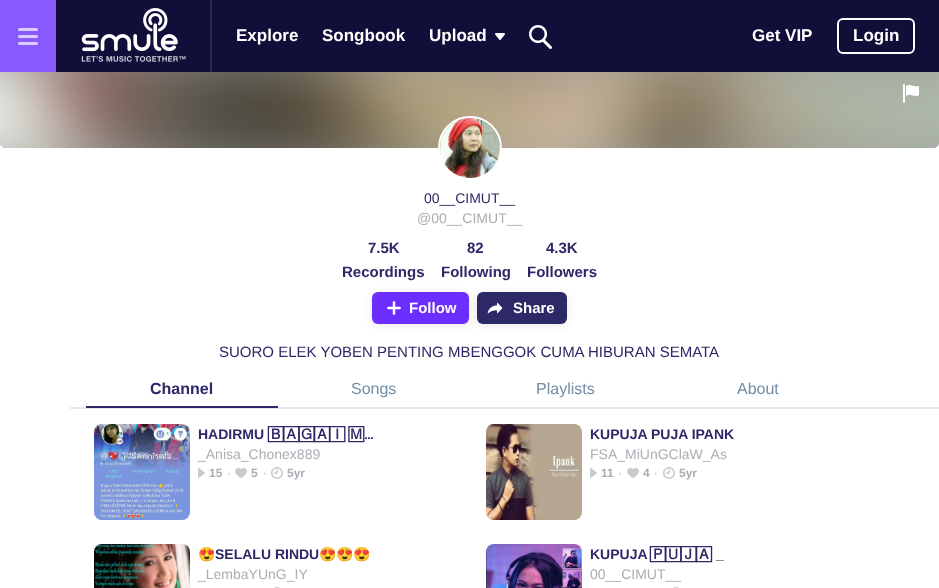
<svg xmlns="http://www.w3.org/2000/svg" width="939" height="588">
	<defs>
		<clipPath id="clip1"><rect x="198" y="544" width="183" height="20" /></clipPath>
	</defs>
	<rect width="100%" height="100%" fill="#FFFFFF" />
	<rect x="56" y="0" width="883" height="72" fill="#110E39" />
	<rect x="0" y="0" width="56" height="72" fill="#8A59FF" />
	<rect x="18" y="35" width="20" height="3" rx="1.5" fill="#DCCDFF" />
	<rect x="18" y="28" width="20" height="3" rx="1.5" fill="#DCCDFF" />
	<rect x="18" y="42" width="20" height="3" rx="1.5" fill="#DCCDFF" />
	<image x="81" y="8" width="105" height="54" href="assets/img1.png" />
	<rect x="210" y="0" width="2" height="72" fill="#29264D" />
	<g font-family="Liberation Sans" font-size="17" font-weight="700" fill="#FFFFFF">
		<text x="236" y="41">Explore</text>
		<text x="322" y="41">Songbook</text>
		<text x="429" y="41">Upload</text>
	</g>
	<image x="495" y="33" width="10" height="7" href="assets/img2.png" />
	<image x="529" y="25" width="23" height="24" href="assets/img3.png" />
	<text x="752" y="41" font-family="Liberation Sans" font-size="17" font-weight="700" fill="#FFFFFF">Get VIP</text>
	<rect x="838" y="19" width="76" height="34" rx="5" fill="none" stroke="#FFFFFF" stroke-width="2" />
	<text x="853" y="41" font-family="Liberation Sans" font-size="17" font-weight="700" fill="#FFFFFF">Login</text>
	<path d="M0 72H939V142C939 145.5 936.5 148 933 148H6C2.5 148 0 145.5 0 142Z" fill="#999999" />
	<image x="0" y="72" width="939" height="76" href="assets/img4.png" />
	<image x="903" y="84" width="16" height="19" href="assets/img5.png" />
	<circle cx="470" cy="148" r="31" fill="none" stroke="#FFFFFF" stroke-width="2" />
	<image x="440" y="118" width="60" height="60" href="assets/img6.png" />
	<text x="424" y="203" font-family="Liberation Sans" font-size="14" fill="#2D2867">00__CIMUT__</text>
	<text x="417" y="223" font-family="Liberation Sans" font-size="14" fill="#AAADB4">@00__CIMUT__</text>
	<g font-family="Liberation Sans" font-size="15" font-weight="700" fill="#2D2867">
		<text x="368" y="253">7.5K</text>
		<text x="342" y="277">Recordings</text>
		<text x="467" y="253">82</text>
		<text x="441" y="277">Following</text>
		<text x="546" y="253">4.3K</text>
		<text x="527" y="277">Followers</text>
	</g>
	<rect x="372" y="294" width="97" height="32" rx="6" fill="#1F2021" fill-opacity="0.1" filter="blur(4px)" />
	<rect x="372" y="292" width="97" height="32" rx="6" fill="#6C2EFF" />
	<image x="387" y="301" width="14" height="14" href="assets/img7.png" />
	<text x="409" y="313" font-family="Liberation Sans" font-size="15" font-weight="700" fill="#FFFFFF">Follow</text>
	<rect x="477" y="294" width="90" height="32" rx="6" fill="#1F2021" fill-opacity="0.1" filter="blur(4px)" />
	<rect x="477" y="292" width="90" height="32" rx="6" fill="#2D2867" />
	<image x="487" y="302" width="16" height="12" href="assets/img8.png" />
	<text x="513" y="313" font-family="Liberation Sans" font-size="15" font-weight="700" fill="#FFFFFF">Share</text>
	<text x="219" y="357" font-family="Liberation Sans" font-size="15" fill="#2D2867">SUORO ELEK YOBEN PENTING MBENGGOK CUMA HIBURAN SEMATA</text>
	<rect x="70" y="407" width="869" height="2" fill="#E4E9EE" />
	<rect x="86" y="406" width="192" height="2" fill="#2D2867" />
	<text x="150" y="394" font-family="Liberation Sans" font-size="16" font-weight="700" fill="#2D2867">Channel</text>
	<g font-family="Liberation Sans" font-size="16" fill="#728CA6">
		<text x="351" y="394">Songs</text>
		<text x="536" y="394">Playlists</text>
		<text x="737" y="394">About</text>
	</g>
	<rect x="94" y="424" width="96" height="96" rx="8" fill="#F0F2F4" />
	<image x="94" y="424" width="96" height="96" href="assets/img9.png" />
	<text x="198" y="439" font-family="Liberation Sans" font-size="14" font-weight="700" fill="#2D2867">HADIRMU</text>
	<text x="268" y="439" font-family="FreeSans" font-size="14" font-weight="700" fill="#2D2867">🄱🄰🄶🄰🄸 🄼…</text>
	<text x="198" y="459" font-family="Liberation Sans" font-size="14" fill="#AAADB4">_Anisa_Chonex889</text>
	<image x="198" y="468" width="7" height="10" href="assets/img10.png" />
	<text x="209" y="477" font-family="Liberation Sans" font-size="12" font-weight="700" fill="#AAADB4">15</text>
	<text x="226" y="478" font-family="Liberation Sans" font-size="16" fill="#C8CACF">·</text>
	<image x="235" y="468" width="12" height="10" href="assets/img11.png" />
	<text x="251" y="477" font-family="Liberation Sans" font-size="12" font-weight="700" fill="#AAADB4">5</text>
	<text x="262" y="478" font-family="Liberation Sans" font-size="16" fill="#C8CACF">·</text>
	<image x="271" y="467" width="12" height="12" href="assets/img12.png" />
	<text x="287" y="477" font-family="Liberation Sans" font-size="12" font-weight="700" fill="#AAADB4">5yr</text>
	<rect x="486" y="424" width="96" height="96" rx="8" fill="#F0F2F4" />
	<image x="486" y="424" width="96" height="96" href="assets/img13.png" />
	<text x="590" y="439" font-family="Liberation Sans" font-size="14" font-weight="700" fill="#2D2867">KUPUJA PUJA IPANK</text>
	<text x="590" y="459" font-family="Liberation Sans" font-size="14" fill="#AAADB4">FSA_MiUnGClaW_As</text>
	<image x="590" y="468" width="7" height="10" href="assets/img10.png" />
	<text x="601" y="477" font-family="Liberation Sans" font-size="12" font-weight="700" fill="#AAADB4">11</text>
	<text x="617" y="478" font-family="Liberation Sans" font-size="16" fill="#C8CACF">·</text>
	<image x="627" y="468" width="12" height="10" href="assets/img11.png" />
	<text x="643" y="477" font-family="Liberation Sans" font-size="12" font-weight="700" fill="#AAADB4">4</text>
	<text x="653" y="478" font-family="Liberation Sans" font-size="16" fill="#C8CACF">·</text>
	<image x="663" y="467" width="12" height="12" href="assets/img12.png" />
	<text x="679" y="477" font-family="Liberation Sans" font-size="12" font-weight="700" fill="#AAADB4">5yr</text>
	<image x="94" y="544" width="96" height="44" href="assets/img14.png" />
	<g clip-path="url(#clip1)">
		<text x="198" y="559" font-family="Noto Color Emoji" font-size="14" font-weight="700" fill="#2D2867">😍</text>
	</g>
	<text x="215" y="559" font-family="Liberation Sans" font-size="14" font-weight="700" fill="#2D2867">SELALU RINDU</text>
	<text x="319" y="559" font-family="Noto Color Emoji" font-size="14" font-weight="700" fill="#2D2867">😍😍😍</text>
	<text x="198" y="579" font-family="Liberation Sans" font-size="14" fill="#AAADB4">_LembaYUnG_IY</text>
	<image x="274" y="587" width="6" height="1" href="assets/img15.png" />
	<image x="486" y="544" width="96" height="44" href="assets/img16.png" />
	<text x="590" y="559" font-family="Liberation Sans" font-size="14" font-weight="700" fill="#2D2867">KUPUJA</text>
	<text x="650" y="559" font-family="FreeSans" font-size="14" font-weight="700" fill="#2D2867">🄿🅄🄹🄰</text>
	<text x="716" y="559" font-family="Liberation Sans" font-size="14" font-weight="700" fill="#2D2867">_</text>
	<text x="590" y="579" font-family="Liberation Sans" font-size="14" fill="#AAADB4">00__CIMUT__</text>
	<image x="673" y="587" width="6" height="1" href="assets/img15.png" />
</svg>
